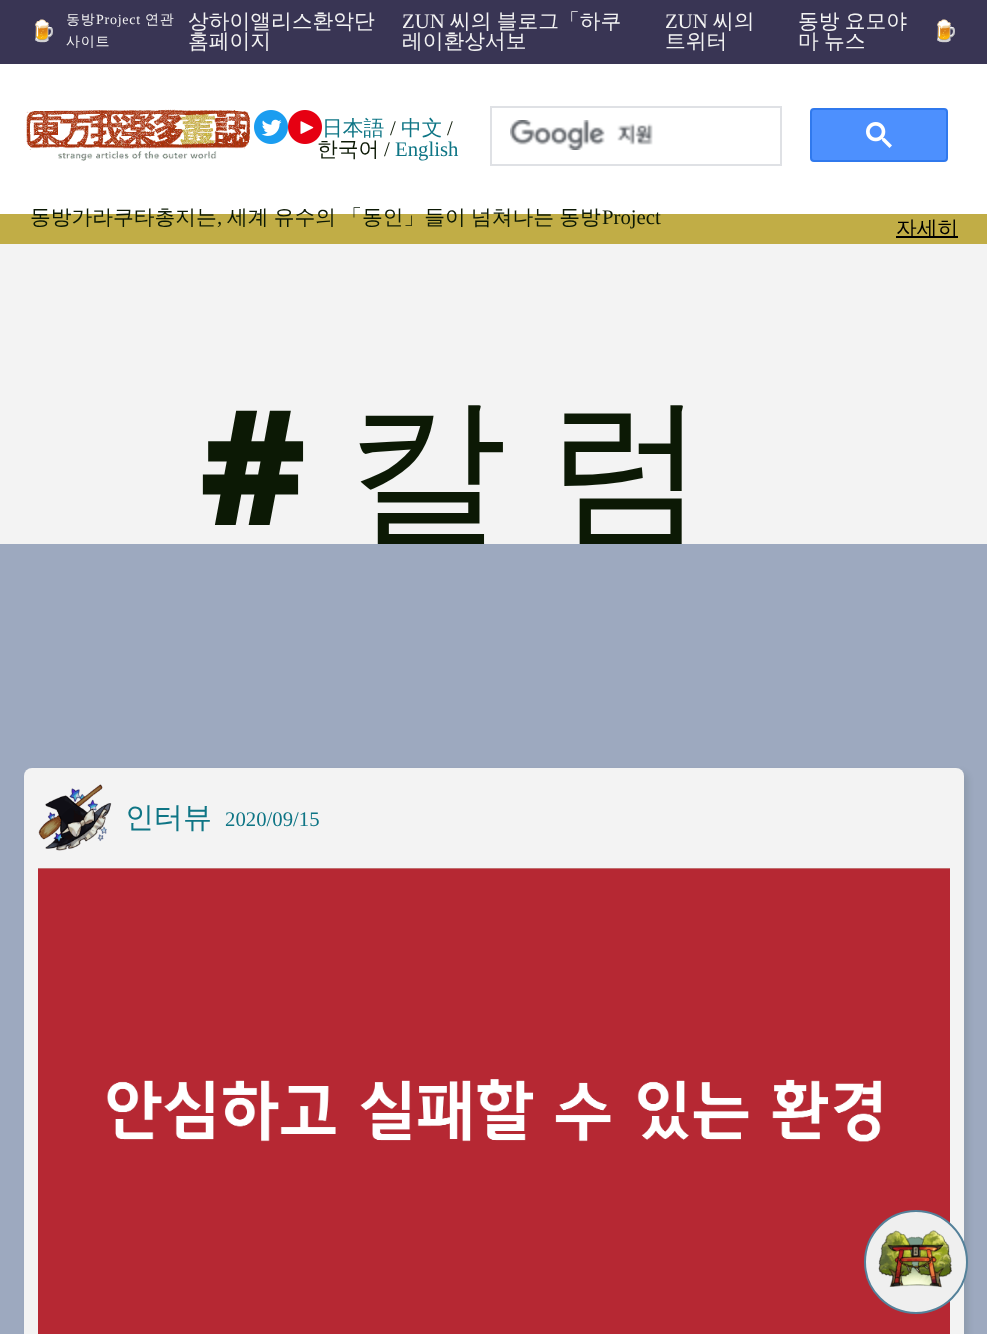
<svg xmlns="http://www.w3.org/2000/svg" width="987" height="1334">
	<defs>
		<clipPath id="clip1"><rect x="200" y="384" width="546" height="160" /></clipPath>
	</defs>
	<rect width="100%" height="100%" fill="#F3F3F3" />
	<rect x="0" y="0" width="987" height="64" fill="#393554" />
	<text x="30" y="38" font-family="Noto Color Emoji" font-size="20.75" fill="#0C1905">🍺</text>
	<text x="66" y="24" font-family="WenQuanYi Zen Hei" font-size="14" font-weight="500" letter-spacing="0.75" fill="#F3F3F3">동방</text>
	<text x="96" y="24" font-family="Liberation Serif" font-size="14" letter-spacing="0.75" fill="#F3F3F3">Project</text>
	<g font-family="WenQuanYi Zen Hei" font-size="14" font-weight="500" letter-spacing="0.75" fill="#F3F3F3">
		<text x="145" y="24">연관</text>
		<text x="66" y="46">사이트</text>
	</g>
	<g font-family="WenQuanYi Zen Hei" font-size="20.75" font-weight="500" fill="#F3F3F3">
		<text x="188" y="28">상하이앨리스환악단</text>
		<text x="188" y="48">홈페이지</text>
	</g>
	<text x="402" y="28" font-family="Liberation Serif" font-size="20.75" fill="#F3F3F3">ZUN</text>
	<g font-family="WenQuanYi Zen Hei" font-size="20.75" font-weight="500" fill="#F3F3F3">
		<text x="450" y="28" word-spacing="-1">씨의 블로그「하쿠</text>
		<text x="402" y="48">레이환상서보</text>
	</g>
	<text x="665" y="28" font-family="Liberation Serif" font-size="20.75" fill="#F3F3F3">ZUN</text>
	<g font-family="WenQuanYi Zen Hei" font-size="20.75" font-weight="500" fill="#F3F3F3">
		<text x="713" y="28">씨의</text>
		<text x="665" y="48">트위터</text>
		<text x="798" y="28" word-spacing="-1">동방 요모야</text>
		<text x="798" y="48" word-spacing="-1">마 뉴스</text>
	</g>
	<text x="932" y="38" font-family="Noto Color Emoji" font-size="20.75" fill="#0C1905">🍺</text>
	<rect x="0" y="64" width="987" height="150" fill="#FFFFFF" />
	<image x="26" y="109" width="224" height="52" href="assets/img1.png" />
	<image x="254" y="110" width="34" height="34" href="assets/img2.png" />
	<image x="288" y="110" width="34" height="34" href="assets/img3.png" />
	<text x="322" y="135" font-family="WenQuanYi Zen Hei" font-size="20.75" font-weight="500" fill="#0E7585">日本語</text>
	<text x="390" y="135" font-family="Liberation Serif" font-size="20.75" fill="#0C1905">/</text>
	<text x="401" y="135" font-family="WenQuanYi Zen Hei" font-size="20.75" font-weight="500" fill="#0E7585">中文</text>
	<text x="447" y="135" font-family="Liberation Serif" font-size="20.75" fill="#0C1905">/</text>
	<text x="317" y="156" font-family="WenQuanYi Zen Hei" font-size="20.75" font-weight="500" fill="#0C1905">한국어</text>
	<text x="384" y="156" font-family="Liberation Serif" font-size="20.75" fill="#0C1905">/</text>
	<text x="395" y="156" font-family="Liberation Serif" font-size="20.75" fill="#0E7585">English</text>
	<rect x="491" y="107" width="290" height="58" fill="none" stroke="#DFE1E5" stroke-width="2" />
	<image x="510" y="120" width="143" height="30" href="assets/img4.png" />
	<rect x="811" y="109" width="136" height="52" rx="3" fill="#4D90FE" stroke="#3079ED" stroke-width="2" />
	<image x="866" y="122" width="26" height="26" href="assets/img5.png" />
	<rect x="0" y="214" width="987" height="30" fill="#C1AD46" />
	<text x="30" y="224" font-family="WenQuanYi Zen Hei" font-size="20.75" font-weight="500" fill="#0C1905">동방가라쿠타총지는</text>
	<text x="217" y="224" font-family="Liberation Serif" font-size="20.75" fill="#0C1905">,</text>
	<text x="227" y="224" word-spacing="-1" font-family="WenQuanYi Zen Hei" font-size="20.75" font-weight="500" fill="#0C1905">세계 유수의 「동인」들이 넘쳐나는 동방</text>
	<text x="602" y="224" font-family="Liberation Serif" font-size="20.75" fill="#0C1905">Project</text>
	<rect x="896" y="236" width="62" height="2" fill="#000000" />
	<text x="896" y="235" font-family="WenQuanYi Zen Hei" font-size="20.75" font-weight="500" fill="#000000">자세히</text>
	<text x="200" y="525" font-family="Noto Sans" font-size="160" font-weight="900" letter-spacing="40" fill="#0C1905">#</text>
	<g clip-path="url(#clip1)">
		<text x="347" y="525" font-family="WenQuanYi Zen Hei" font-size="160" font-weight="500" letter-spacing="40" fill="#0C1905">칼럼</text>
	</g>
	<rect x="0" y="544" width="987" height="790" fill="#9DA9BF" />
	<rect x="28" y="772" width="940" height="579" rx="8" fill="#0C1905" fill-opacity="0.1" filter="blur(3px)" />
	<rect x="24" y="768" width="940" height="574" rx="8" fill="#F3F3F3" />
	<image x="38" y="784" width="74" height="67" href="assets/img6.png" />
	<text x="125" y="827" font-family="WenQuanYi Zen Hei" font-size="29" font-weight="500" fill="#0E7585">인터뷰</text>
	<text x="225" y="826" font-family="Liberation Serif" font-size="20.75" fill="#0E7585">2020/09/15</text>
	<image x="38" y="868" width="912" height="466" href="assets/img7.png" />
	<circle cx="916" cy="1262" r="51" fill="#EFEFEF" stroke="#54819A" stroke-width="2" />
	<image x="878" y="1230" width="74" height="58" href="assets/img8.png" />
</svg>
